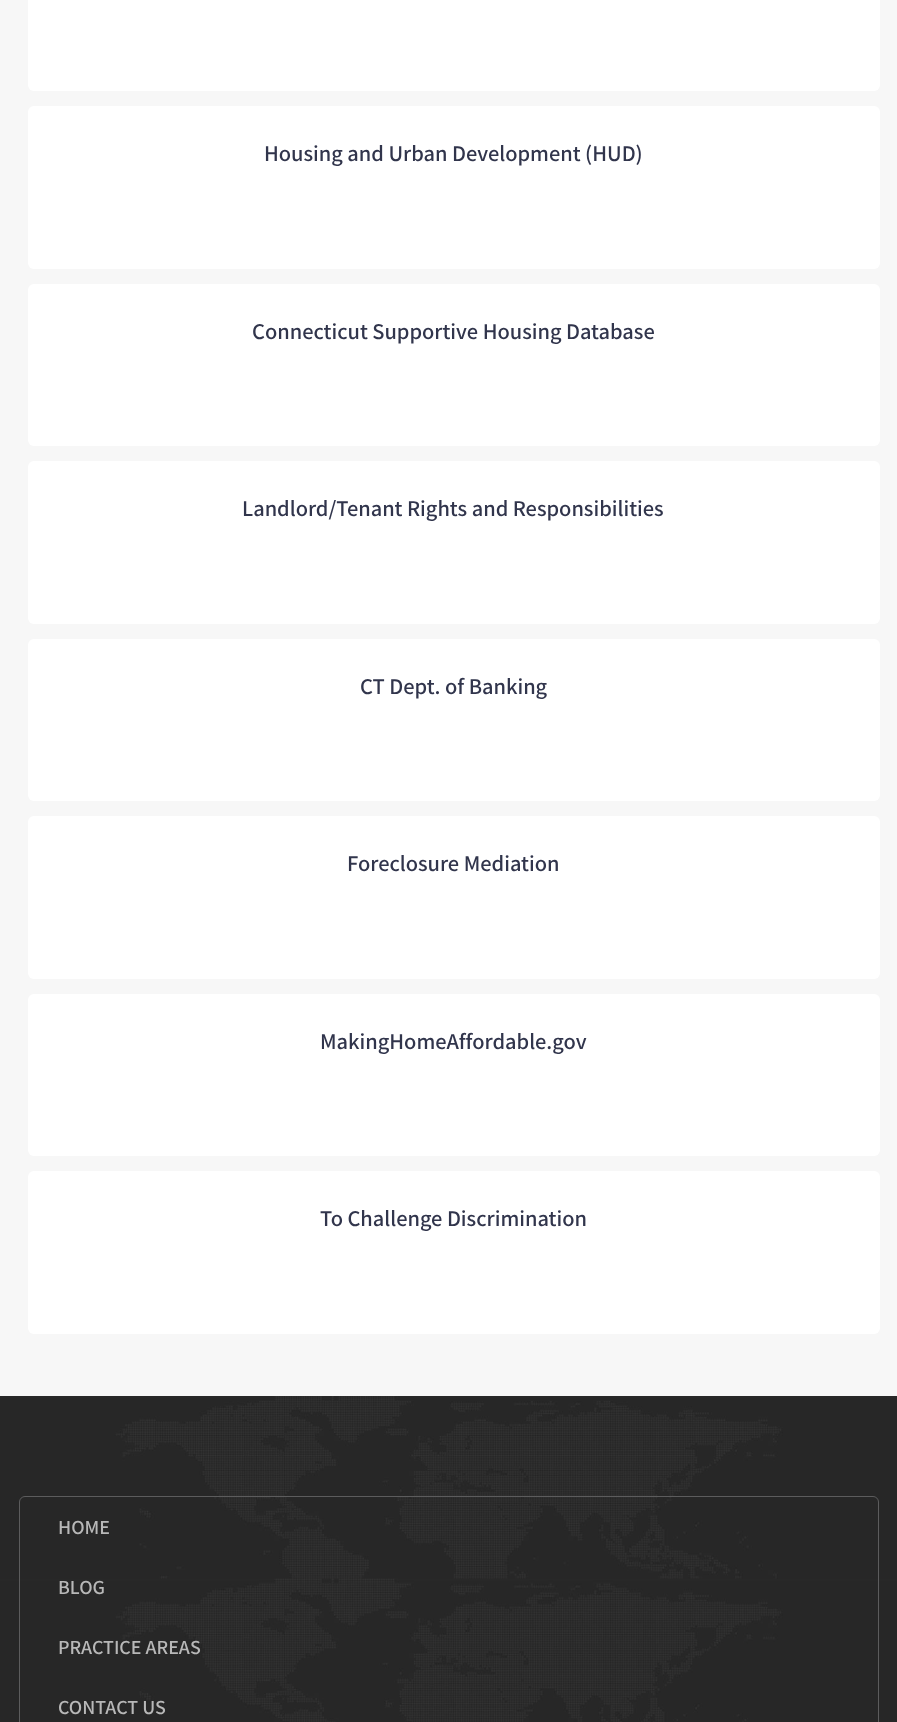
<svg xmlns="http://www.w3.org/2000/svg" width="897" height="1722">
	<rect width="100%" height="100%" fill="#F7F7F7" />
	<rect x="28" y="-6" width="852" height="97" rx="6" fill="#FFFFFF" />
	<rect x="28" y="106" width="852" height="163" rx="6" fill="#FFFFFF" />
	<text x="264" y="161" font-family="Assistant" font-size="22.5" font-weight="600" fill="#31354C">Housing and Urban Development (HUD)</text>
	<rect x="28" y="284" width="852" height="162" rx="6" fill="#FFFFFF" />
	<text x="252" y="339" font-family="Assistant" font-size="22.5" font-weight="600" fill="#31354C">Connecticut Supportive Housing Database</text>
	<rect x="28" y="461" width="852" height="163" rx="6" fill="#FFFFFF" />
	<text x="242" y="516" font-family="Assistant" font-size="22.5" font-weight="600" fill="#31354C">Landlord/Tenant Rights and Responsibilities</text>
	<rect x="28" y="639" width="852" height="162" rx="6" fill="#FFFFFF" />
	<text x="360" y="694" font-family="Assistant" font-size="22.5" font-weight="600" fill="#31354C">CT Dept. of Banking</text>
	<rect x="28" y="816" width="852" height="163" rx="6" fill="#FFFFFF" />
	<text x="347" y="871" font-family="Assistant" font-size="22.5" font-weight="600" fill="#31354C">Foreclosure Mediation</text>
	<rect x="28" y="994" width="852" height="162" rx="6" fill="#FFFFFF" />
	<text x="320" y="1049" font-family="Assistant" font-size="22.5" font-weight="600" fill="#31354C">MakingHomeAffordable.gov</text>
	<rect x="28" y="1171" width="852" height="163" rx="6" fill="#FFFFFF" />
	<text x="320" y="1226" font-family="Assistant" font-size="22.5" font-weight="600" fill="#31354C">To Challenge Discrimination</text>
	<image x="0" y="1396" width="897" height="326" href="assets/img1.png" />
	<rect x="19.5" y="1496.5" width="859" height="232" rx="5.5" fill="none" stroke="#5C5C5D" />
	<g font-family="Assistant" font-size="20" font-weight="600" fill="#B8B8B8">
		<text x="58" y="1534">HOME</text>
		<text x="58" y="1594">BLOG</text>
		<text x="58" y="1654">PRACTICE AREAS</text>
		<text x="58" y="1714">CONTACT US</text>
	</g>
</svg>
